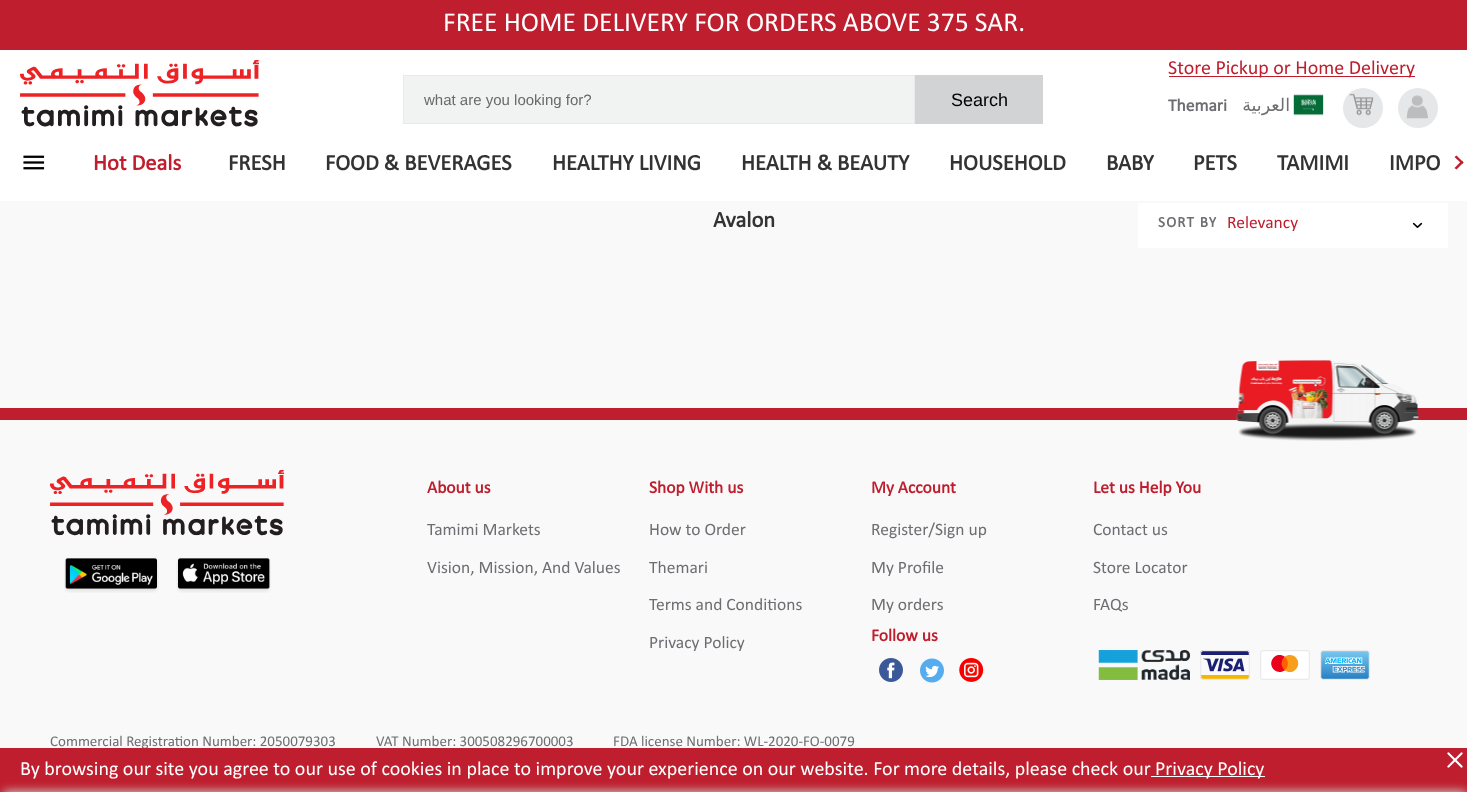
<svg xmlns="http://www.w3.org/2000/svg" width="1467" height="792">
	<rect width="100%" height="100%" fill="#F9F9FA" />
	<rect x="0" y="0" width="1467" height="50" fill="#BE1E2D" />
	<text x="443" y="31" font-family="Calibri" font-size="27.5" fill="#FFFFFF">FREE HOME DELIVERY FOR ORDERS ABOVE 375 SAR.</text>
	<rect x="0" y="50" width="1467" height="151" fill="#FFFFFF" />
	<image x="20" y="60" width="239" height="67" href="assets/img1.png" />
	<rect x="403.5" y="75.5" width="511" height="48" fill="#F1F2F2" stroke="#EAEAEA" />
	<text x="424" y="105" font-family="Liberation Sans" font-size="15" fill="#696969">what are you looking for?</text>
	<rect x="915" y="75" width="128" height="49" fill="#D1D3D4" />
	<text x="951" y="106" font-family="Liberation Sans" font-size="18" fill="#000000">Search</text>
	<rect x="1169" y="76" width="246" height="1" fill="#BE1E2D" />
	<text x="1168" y="74" font-family="Calibri" font-size="20" fill="#BE1E2D">Store Pickup or Home Delivery</text>
	<text x="1168" y="111" font-family="Calibri" font-size="17.5" font-weight="700" fill="#6D6E71">Themari</text>
	<text x="1290" y="111" font-family="DejaVu Sans" font-size="17.5" direction="rtl" fill="#6D6E71">العربية</text>
	<image x="1293" y="94" width="31" height="22" href="assets/img2.png" />
	<circle cx="1363" cy="108" r="20" fill="#E6E7E8" />
	<image x="1349" y="93" width="25" height="23" href="assets/img3.png" />
	<circle cx="1418" cy="108" r="20" fill="#E6E7E8" />
	<image x="1406" y="95" width="22" height="24" href="assets/img4.png" />
	<image x="23" y="155" width="22" height="15" href="assets/img5.png" />
	<text x="93" y="170" font-family="Calibri" font-size="22.5" font-weight="700" fill="#BE1E2D">Hot Deals</text>
	<g font-family="Calibri" font-size="22.5" font-weight="700" fill="#333333">
		<text x="228" y="170">FRESH</text>
		<text x="325" y="170">FOOD &amp; BEVERAGES</text>
		<text x="552" y="170">HEALTHY LIVING</text>
		<text x="741" y="170">HEALTH &amp; BEAUTY</text>
		<text x="949" y="170">HOUSEHOLD</text>
		<text x="1106" y="170">BABY</text>
		<text x="1193" y="170">PETS</text>
		<text x="1277" y="170">TAMIMI</text>
		<text x="1389" y="170">IMPO</text>
	</g>
	<path d="M1454.5 157L1456.5 155.5L1463.5 162.5L1462 164Z" fill="#BE1E2D" />
	<path d="M1454.5 168L1462 160.5L1463.5 162.5L1456.5 169.5Z" fill="#BE1E2D" />
	<text x="713" y="227" font-family="Calibri" font-size="22.5" font-weight="700" fill="#333333">Avalon</text>
	<rect x="1138" y="203" width="310" height="45" fill="#FFFFFF" />
	<text x="1158" y="227" font-family="Calibri" font-size="15" font-weight="700" letter-spacing="1.25" fill="#6D6E71">SORT BY</text>
	<text x="1227" y="228" font-family="Calibri" font-size="17.5" fill="#BE1E2D">Relevancy</text>
	<image x="1412" y="222" width="11" height="6" href="assets/img6.png" />
	<rect x="0" y="408" width="1467" height="12" fill="#BE1E2D" />
	<image x="1236" y="360" width="183" height="81" href="assets/img7.png" />
	<image x="50" y="470" width="234" height="66" href="assets/img8.png" />
	<image x="64" y="558" width="95" height="35" href="assets/img9.png" />
	<image x="176" y="558" width="95" height="35" href="assets/img10.png" />
	<text x="427" y="493" font-family="Calibri" font-size="17.5" font-weight="700" fill="#BE1E2D">About us</text>
	<g font-family="Calibri" font-size="17.5" fill="#6D6E71">
		<text x="427" y="535">Tamimi Markets</text>
		<text x="427" y="573">Vision, Mission, And Values</text>
	</g>
	<text x="649" y="493" font-family="Calibri" font-size="17.5" font-weight="700" fill="#BE1E2D">Shop With us</text>
	<g font-family="Calibri" font-size="17.5" fill="#6D6E71">
		<text x="649" y="535">How to Order</text>
		<text x="649" y="573">Themari</text>
		<text x="649" y="610">Terms and Conditions</text>
		<text x="649" y="648">Privacy Policy</text>
	</g>
	<text x="871" y="493" font-family="Calibri" font-size="17.5" font-weight="700" fill="#BE1E2D">My Account</text>
	<g font-family="Calibri" font-size="17.5" fill="#6D6E71">
		<text x="871" y="535">Register/Sign up</text>
		<text x="871" y="573">My Profile</text>
		<text x="871" y="610">My orders</text>
	</g>
	<text x="871" y="641" font-family="Calibri" font-size="17.5" font-weight="700" fill="#BE1E2D">Follow us</text>
	<image x="879" y="658" width="24" height="24" href="assets/img11.png" />
	<image x="920" y="658" width="24" height="25" href="assets/img12.png" />
	<image x="959" y="658" width="25" height="24" href="assets/img13.png" />
	<text x="1093" y="493" font-family="Calibri" font-size="17.5" font-weight="700" fill="#BE1E2D">Let us Help You</text>
	<g font-family="Calibri" font-size="17.5" fill="#6D6E71">
		<text x="1093" y="535">Contact us</text>
		<text x="1093" y="573">Store Locator</text>
		<text x="1093" y="610">FAQs</text>
	</g>
	<image x="1098" y="650" width="92" height="30" href="assets/img14.png" />
	<image x="1200" y="650" width="50" height="30" href="assets/img15.png" />
	<image x="1260" y="650" width="50" height="30" href="assets/img16.png" />
	<image x="1320" y="650" width="50" height="30" href="assets/img17.png" />
	<g font-family="Calibri" font-size="15" fill="#6D6E71">
		<text x="50" y="746">Commercial Registration Number: 2050079303</text>
		<text x="376" y="746">VAT Number: 300508296700003</text>
		<text x="613" y="746">FDA license Number: WL-2020-FO-0079</text>
	</g>
	<rect x="0" y="748" width="1467" height="44" fill="#BE1E2D" />
	<text x="20" y="775" font-family="Calibri" font-size="20" fill="#FFFFFF">By browsing our site you agree to our use of cookies in place to improve your experience on our website. For more details, please check our</text>
	<rect x="1151" y="776" width="114" height="1" fill="#FFFFFF" />
	<text x="1155" y="775" font-family="Calibri" font-size="20" fill="#FFFFFF">Privacy Policy</text>
	<image x="1447" y="752" width="16" height="16" href="assets/img18.png" />
	<rect x="4" y="791" width="1462" height="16" fill="#CCCCCC" filter="blur(5px)" />
</svg>
